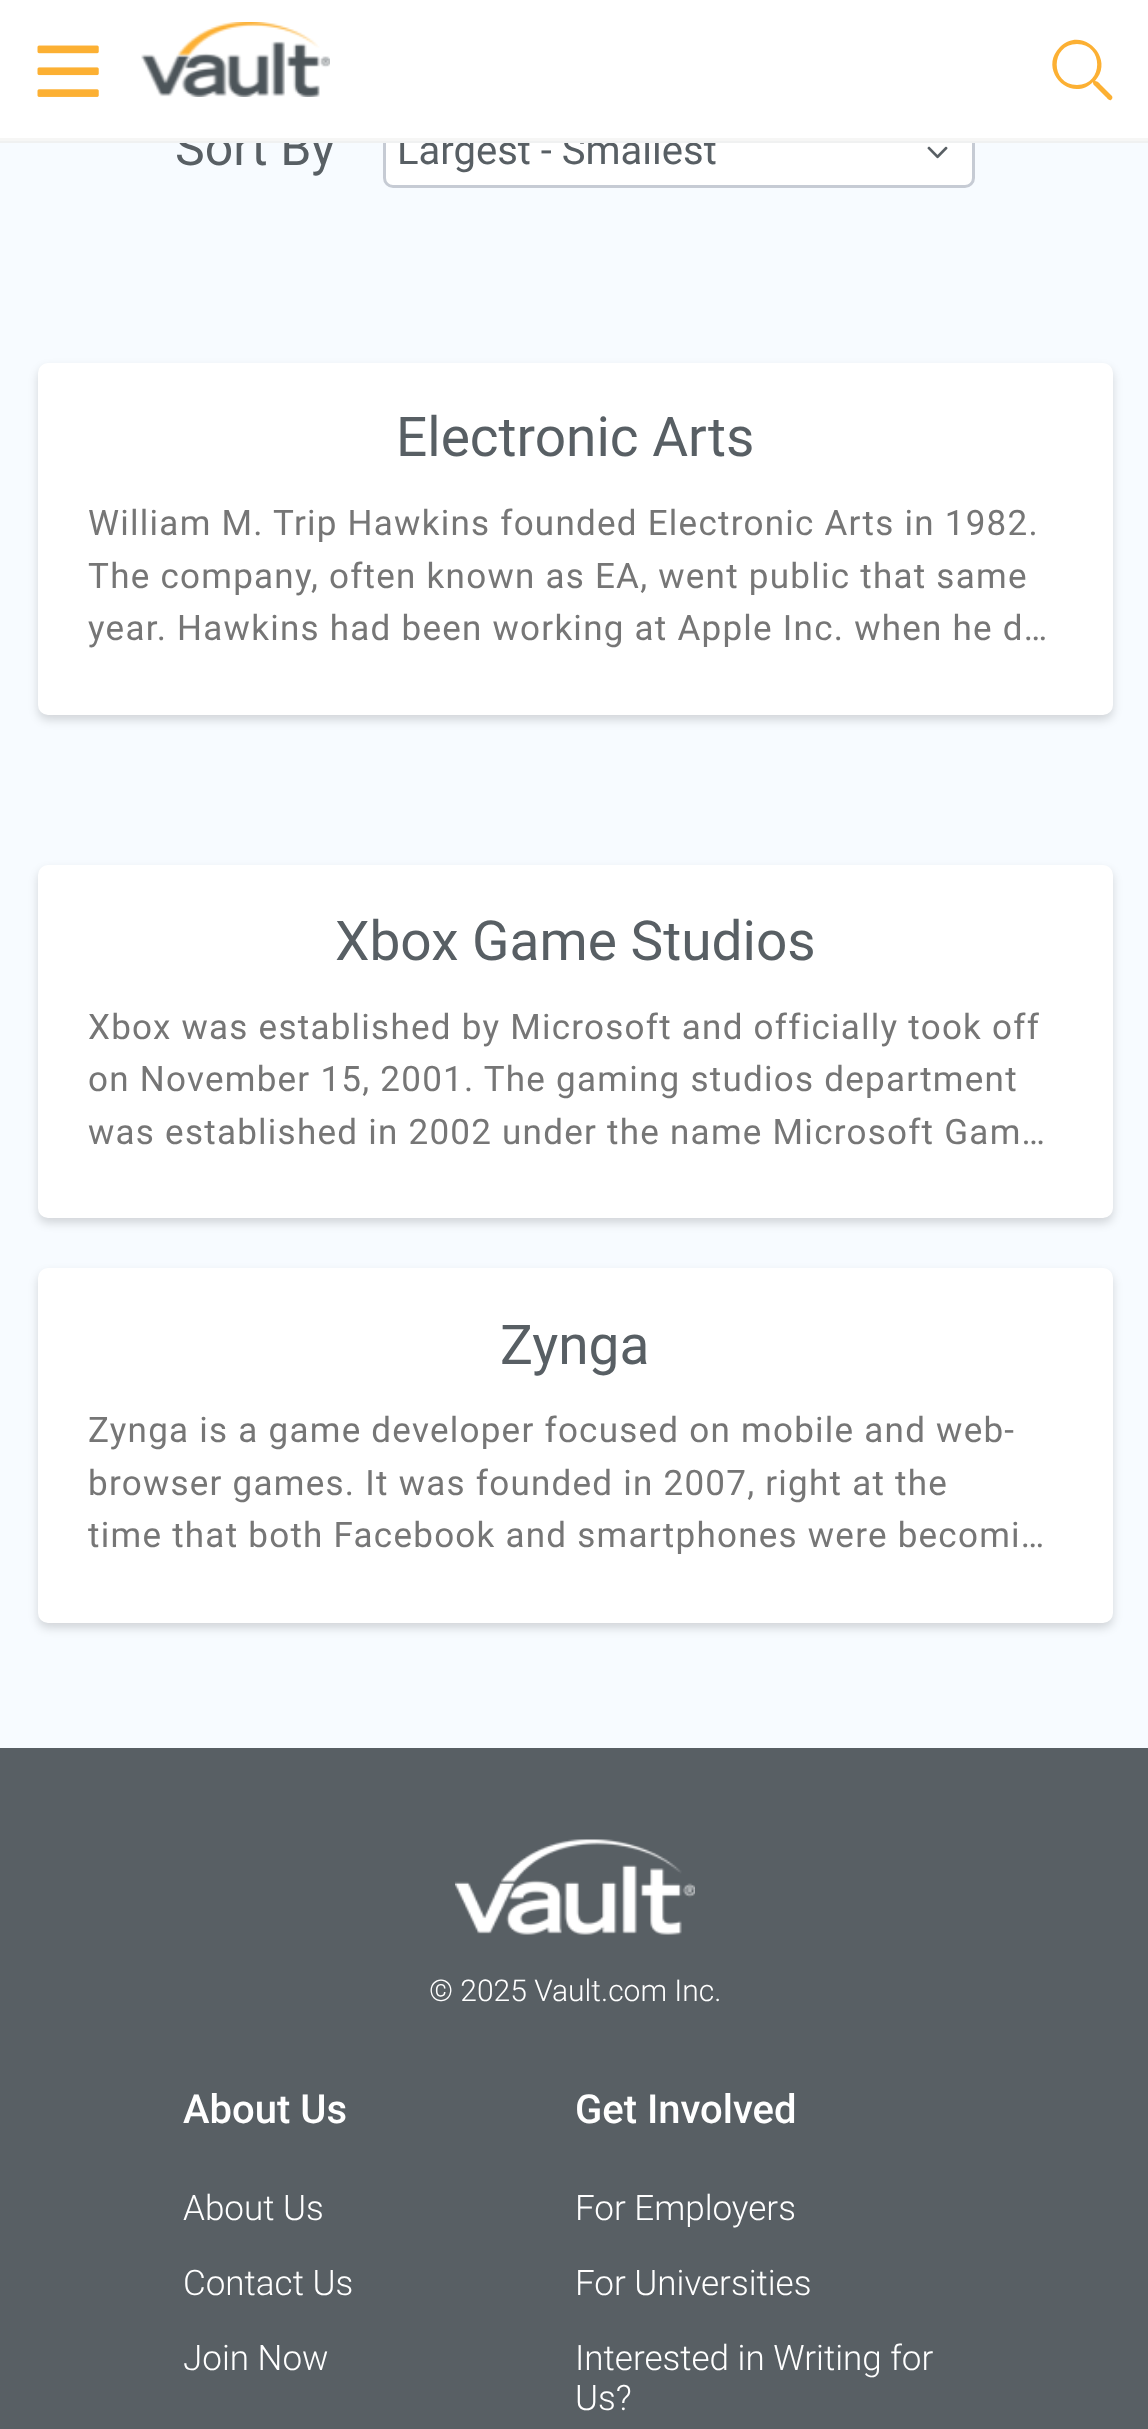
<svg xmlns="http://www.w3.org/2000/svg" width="1148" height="2429">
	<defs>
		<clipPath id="clip1"><rect x="88" y="1510" width="975" height="53" /></clipPath>
	</defs>
	<rect width="100%" height="100%" fill="#F7FBFF" />
	<text x="175" y="165" font-family="Roboto" font-size="50" fill="#585F64">Sort By</text>
	<rect x="384.5" y="111.5" width="589" height="75" rx="8.5" fill="#FFFFFF" stroke="#C6CBD4" stroke-width="3" />
	<text x="397" y="164" font-family="Roboto" font-size="40" fill="#585F64">Largest - Smallest</text>
	<rect x="0" y="0" width="1148" height="138" fill="#FFFFFF" />
	<rect x="0" y="141" width="1148" height="2" fill="#F0F1F1" />
	<rect x="0" y="138" width="1148" height="3" fill="#F6F6F5" />
	<image x="37" y="45" width="62" height="52" href="assets/img1.png" />
	<image x="141" y="22" width="189" height="75" href="assets/img2.png" />
	<path d="M1112 96L1102 86C1100 84 1098 81 1095 81C1116 58 1082 25 1060 47C1037 70 1071 104 1093 82C1093 85 1094 85 1096 87L1106 97C1107 98 1109 101 1111 100C1112 99 1113 98 1112 96ZM1077 85C1050 85 1050 44 1077 44C1104 44 1104 85 1077 85Z" fill="#FCB033" />
	<image x="927" y="146" width="21" height="13" href="assets/img3.png" />
	<rect x="38" y="368" width="1075" height="352" rx="10" fill="#000000" fill-opacity="0.15" filter="blur(5px)" />
	<rect x="38" y="363" width="1075" height="352" rx="10" fill="#FFFFFF" />
	<text x="396" y="456" font-family="Roboto" font-size="55" fill="#585F64">Electronic Arts</text>
	<g font-family="Roboto" font-size="35" letter-spacing="1.25" fill="#767676">
		<text x="88" y="535">William M. Trip Hawkins founded Electronic Arts in 1982.</text>
		<text x="88" y="588">The company, often known as EA, went public that same</text>
		<text x="88" y="640">year. Hawkins had been working at Apple Inc. when he d…</text>
	</g>
	<rect x="38" y="870" width="1075" height="353" rx="10" fill="#000000" fill-opacity="0.15" filter="blur(5px)" />
	<rect x="38" y="865" width="1075" height="353" rx="10" fill="#FFFFFF" />
	<text x="335" y="960" font-family="Roboto" font-size="55" fill="#585F64">Xbox Game Studios</text>
	<g font-family="Roboto" font-size="35" letter-spacing="1.25" fill="#767676">
		<text x="88" y="1039">Xbox was established by Microsoft and officially took off</text>
		<text x="88" y="1091">on November 15, 2001. The gaming studios department</text>
		<text x="88" y="1144">was established in 2002 under the name Microsoft Gam…</text>
	</g>
	<rect x="38" y="1273" width="1075" height="355" rx="10" fill="#000000" fill-opacity="0.15" filter="blur(5px)" />
	<rect x="38" y="1268" width="1075" height="355" rx="10" fill="#FFFFFF" />
	<text x="500" y="1364" font-family="Roboto" font-size="55" fill="#585F64">Zynga</text>
	<g font-family="Roboto" font-size="35" letter-spacing="1.25" fill="#767676">
		<text x="88" y="1442">Zynga is a game developer focused on mobile and web-</text>
		<text x="88" y="1495">browser games. It was founded in 2007, right at the</text>
	</g>
	<g clip-path="url(#clip1)">
		<text x="88" y="1547" font-family="Roboto" font-size="35" letter-spacing="1.25" fill="#767676">time that both Facebook and smartphones were becomi…</text>
	</g>
	<rect x="0" y="1748" width="1148" height="681" fill="#585F64" />
	<image x="455" y="1839" width="240" height="96" href="assets/img4.png" />
	<text x="429" y="2001" font-family="Roboto" font-size="30" font-weight="300" fill="#FFFFFF">© 2025 Vault.com Inc.</text>
	<text x="183" y="2123" font-family="Roboto" font-size="40" font-weight="500" fill="#FFFFFF">About Us</text>
	<g font-family="Roboto" font-size="35" font-weight="300" fill="#FFFFFF">
		<text x="183" y="2220">About Us</text>
		<text x="183" y="2295">Contact Us</text>
		<text x="183" y="2370">Join Now</text>
	</g>
	<text x="575" y="2123" font-family="Roboto" font-size="40" font-weight="500" fill="#FFFFFF">Get Involved</text>
	<g font-family="Roboto" font-size="35" font-weight="300" fill="#FFFFFF">
		<text x="575" y="2220">For Employers</text>
		<text x="575" y="2295">For Universities</text>
		<text x="575" y="2370">Interested in Writing for</text>
		<text x="575" y="2410">Us?</text>
	</g>
</svg>
